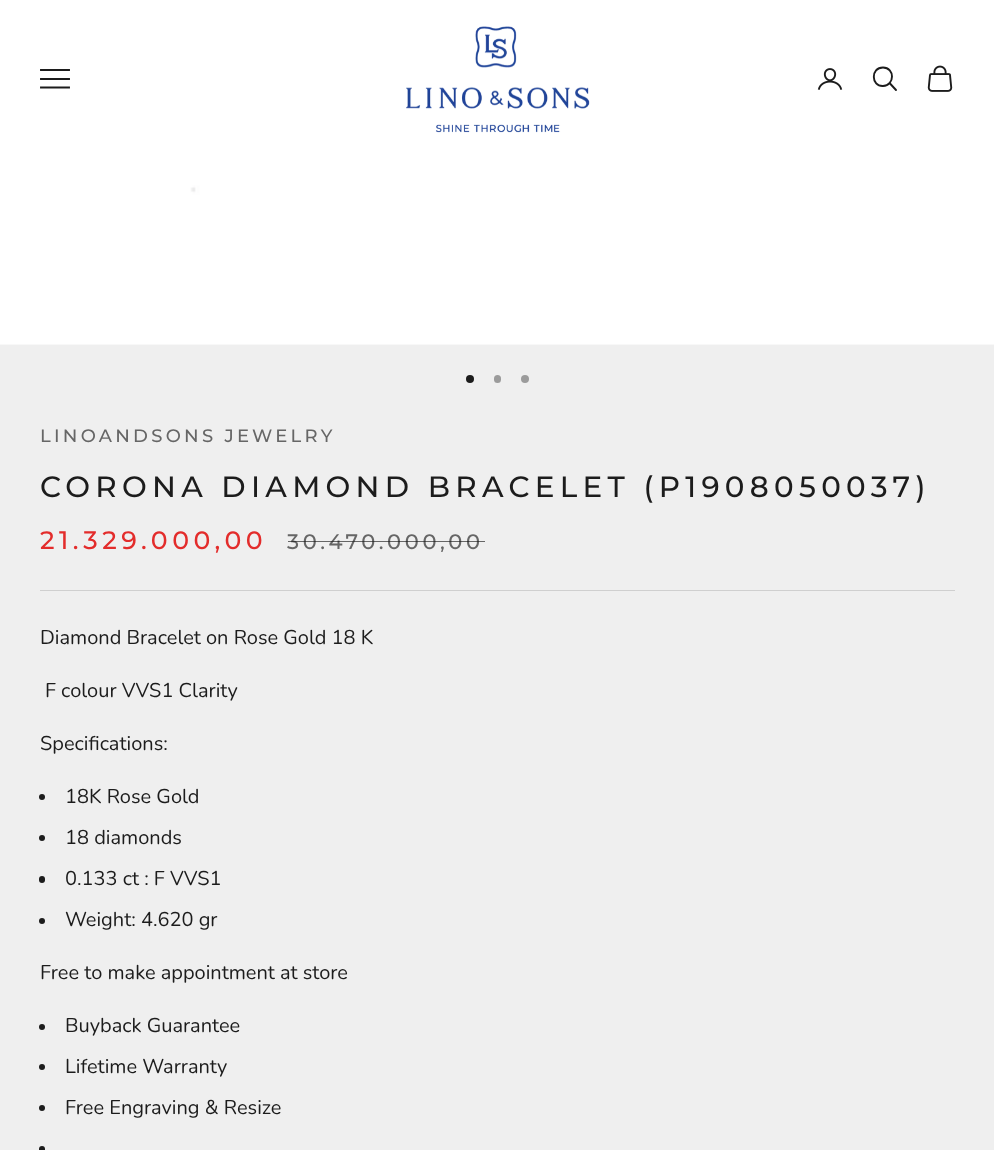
<svg xmlns="http://www.w3.org/2000/svg" width="994" height="1150">
	<rect width="100%" height="100%" fill="#EFEFEF" />
	<rect x="0" y="0" width="994" height="159" fill="#FFFFFF" />
	<path d="M41 87.5H69M41 79H69M41 70H69" fill="none" stroke="#1C1C1C" stroke-width="1.9" stroke-linecap="square" />
	<image x="406" y="26" width="184" height="107" href="assets/img1.png" />
	<image x="817" y="68" width="26" height="22" href="assets/img2.png" />
	<path d="M883 67.5C870.5 67.5 871 86.5 883 86C895 85.5 895 67.5 883 67.5Z" fill="none" stroke="#1C1C1C" stroke-width="1.9" />
	<path d="M890 83.5L896 90" fill="none" stroke="#1C1C1C" stroke-width="1.9" stroke-linecap="round" />
	<image x="927" y="65" width="26" height="27" href="assets/img3.png" />
	<image x="0" y="159" width="994" height="186" href="assets/img4.png" />
	<circle cx="470" cy="379" r="4" fill="#1C1C1C" />
	<rect x="494" y="375" width="7" height="8" rx="3.5" fill="#9B9B9B" />
	<circle cx="525" cy="379" r="4" fill="#9B9B9B" />
	<text x="40" y="442" font-family="Montserrat" font-size="18" font-weight="500" letter-spacing="3.25" fill="#666666">LINOANDSONS JEWELRY</text>
	<text x="40" y="497" font-family="Montserrat" font-size="29.45" font-weight="500" letter-spacing="5.3" fill="#1C1C1C">CORONA DIAMOND BRACELET (P1908050037)</text>
	<text x="40" y="549" font-family="Montserrat" font-size="25.25" font-weight="500" letter-spacing="4.5" fill="#E32C2B">21.329.000,00</text>
	<text x="287" y="549" font-family="Montserrat" font-size="21" font-weight="500" letter-spacing="3.75" fill="#666666">30.470.000,00</text>
	<rect x="288" y="541" width="197" height="1" fill="#1C1C1C" fill-opacity="0.65" />
	<rect x="40" y="590" width="915" height="1" fill="#CFCFCF" />
	<g font-family="Nunito" font-size="20" fill="#1C1C1C">
		<text x="40" y="644">Diamond Bracelet on Rose Gold 18 K</text>
		<text x="45" y="697">F colour VVS1 Clarity</text>
		<text x="40" y="750">Specifications:</text>
	</g>
	<circle cx="42" cy="797" r="3" fill="#1C1C1C" />
	<text x="65" y="803" font-family="Nunito" font-size="20" fill="#1C1C1C">18K Rose Gold</text>
	<circle cx="42" cy="838" r="3" fill="#1C1C1C" />
	<text x="65" y="844" font-family="Nunito" font-size="20" fill="#1C1C1C">18 diamonds</text>
	<rect x="39" y="876" width="6" height="7" rx="3" fill="#1C1C1C" />
	<text x="65" y="885" font-family="Nunito" font-size="20" fill="#1C1C1C">0.133 ct : F VVS1</text>
	<circle cx="42" cy="921" r="3" fill="#1C1C1C" />
	<g font-family="Nunito" font-size="20" fill="#1C1C1C">
		<text x="65" y="926">Weight: 4.620 gr</text>
		<text x="40" y="979">Free to make appointment at store</text>
	</g>
	<circle cx="42" cy="1027" r="3" fill="#1C1C1C" />
	<text x="65" y="1032" font-family="Nunito" font-size="20" fill="#1C1C1C">Buyback Guarantee</text>
	<circle cx="42" cy="1067" r="3" fill="#1C1C1C" />
	<text x="65" y="1073" font-family="Nunito" font-size="20" fill="#1C1C1C">Lifetime Warranty</text>
	<circle cx="42" cy="1108" r="3" fill="#1C1C1C" />
	<text x="65" y="1114" font-family="Nunito" font-size="20" fill="#1C1C1C">Free Engraving &amp; Resize</text>
	<rect x="39" y="1146" width="6" height="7" rx="3" fill="#1C1C1C" />
</svg>
